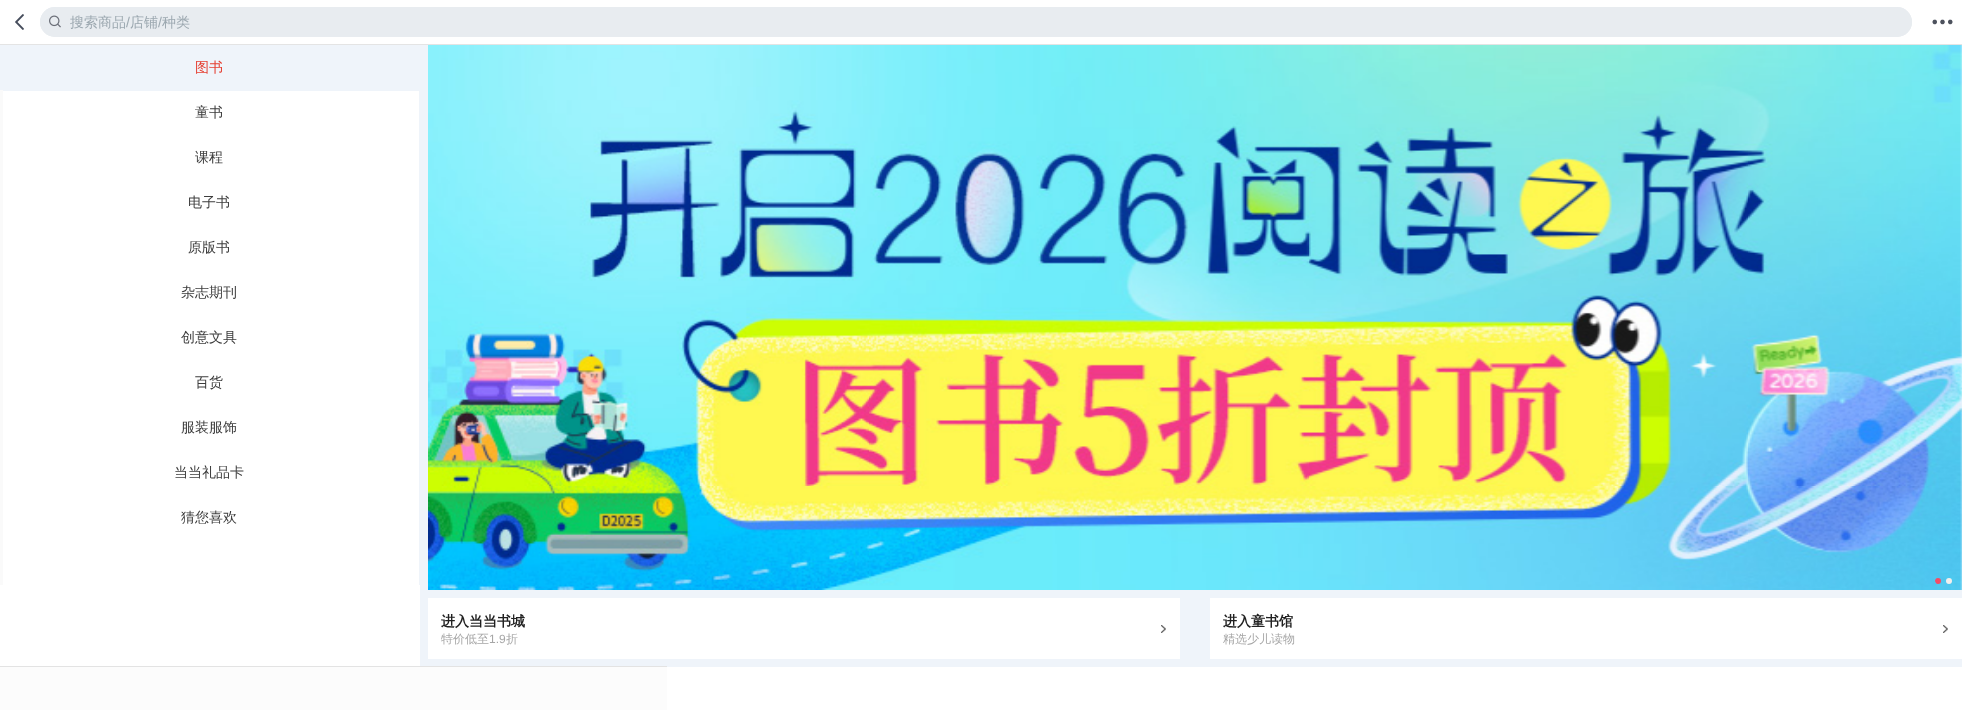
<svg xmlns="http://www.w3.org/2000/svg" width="1962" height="710">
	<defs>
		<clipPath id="clip1"><rect x="1935" y="576" width="22" height="9" rx="4.5" /></clipPath>
	</defs>
	<rect width="100%" height="100%" fill="#FFFFFF" />
	<rect x="0" y="667" width="667" height="43" fill="#FCFCFC" />
	<rect x="0" y="44" width="1962" height="1" fill="#E4E4E4" />
	<image x="15" y="14" width="9" height="16" href="assets/img1.png" />
	<rect x="40" y="7" width="1872" height="30" rx="15" fill="#E8ECF0" />
	<circle cx="55" cy="22" r="15" fill="#E8ECF0" />
	<image x="49" y="15" width="12" height="13" href="assets/img2.png" />
	<rect x="70" y="7" width="1842" height="30" rx="15" fill="#E8ECF0" />
	<text x="70" y="27" font-family="WenQuanYi Zen Hei" font-size="14" font-weight="500" fill="#9CA8B0">搜索商品</text>
	<text x="126" y="27" font-family="Liberation Sans" font-size="14" fill="#9CA8B0">/</text>
	<text x="130" y="27" font-family="WenQuanYi Zen Hei" font-size="14" font-weight="500" fill="#9CA8B0">店铺</text>
	<text x="158" y="27" font-family="Liberation Sans" font-size="14" fill="#9CA8B0">/</text>
	<text x="162" y="27" font-family="WenQuanYi Zen Hei" font-size="14" font-weight="500" fill="#9CA8B0">种类</text>
	<image x="1932" y="19" width="21" height="6" href="assets/img3.png" />
	<rect x="0" y="45" width="420" height="46" fill="#EFF4FA" />
	<text x="195" y="72" font-family="WenQuanYi Zen Hei" font-size="14" font-weight="500" fill="#E53E30">图书</text>
	<rect x="419" y="90" width="1" height="495" fill="#EFF4FA" />
	<rect x="0" y="90" width="3" height="495" fill="#FAFAFA" />
	<g font-family="WenQuanYi Zen Hei" font-size="14" font-weight="500" fill="#3C3C3C">
		<text x="195" y="117">童书</text>
		<text x="195" y="162">课程</text>
		<text x="188" y="207">电子书</text>
		<text x="188" y="252">原版书</text>
		<text x="181" y="297">杂志期刊</text>
		<text x="181" y="342">创意文具</text>
		<text x="195" y="387">百货</text>
		<text x="181" y="432">服装服饰</text>
		<text x="174" y="477">当当礼品卡</text>
		<text x="181" y="522">猜您喜欢</text>
	</g>
	<rect x="420" y="45" width="1542" height="622" fill="#EFF4FA" />
	<image x="428" y="45" width="1534" height="545" href="assets/img4.png" />
	<g clip-path="url(#clip1)">
		<circle cx="1938" cy="581" r="3" fill="#F44C66" />
	</g>
	<circle cx="1949" cy="581" r="3" fill="#F2EFED" />
	<rect x="428" y="598" width="752" height="61" fill="#FFFFFF" />
	<text x="441" y="626" font-family="WenQuanYi Zen Hei" font-size="14" font-weight="700" fill="#212121">进入当当书城</text>
	<text x="441" y="643" font-family="WenQuanYi Zen Hei" font-size="12" font-weight="500" fill="#A6A6A6">特价低至</text>
	<text x="489" y="643" font-family="Liberation Sans" font-size="12" fill="#A6A6A6">1.9</text>
	<text x="506" y="643" font-family="WenQuanYi Zen Hei" font-size="12" font-weight="500" fill="#A6A6A6">折</text>
	<image x="1161" y="625" width="5" height="8" href="assets/img5.png" />
	<rect x="1210" y="598" width="752" height="61" fill="#FFFFFF" />
	<text x="1223" y="626" font-family="WenQuanYi Zen Hei" font-size="14" font-weight="700" fill="#212121">进入童书馆</text>
	<text x="1223" y="643" font-family="WenQuanYi Zen Hei" font-size="12" font-weight="500" fill="#A6A6A6">精选少儿读物</text>
	<image x="1943" y="625" width="5" height="8" href="assets/img5.png" />
	<rect x="0" y="666" width="667" height="1" fill="#E3E3E3" />
</svg>
